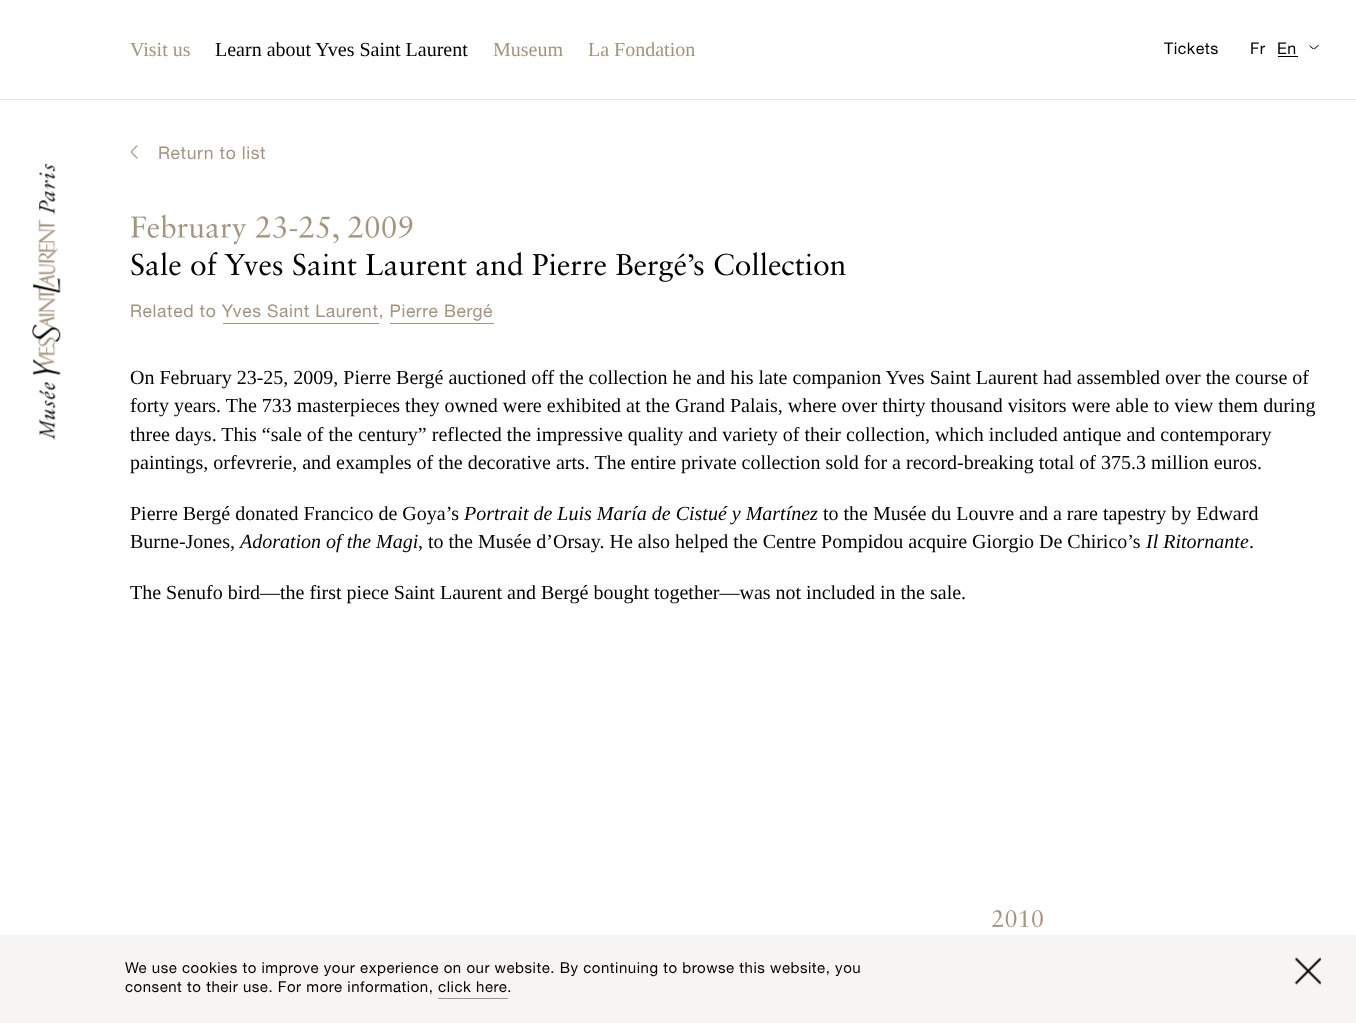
<svg xmlns="http://www.w3.org/2000/svg" width="1356" height="1023">
	<rect width="100%" height="100%" fill="#FFFFFF" />
	<rect x="0" y="99" width="1356" height="1" fill="#E1E1E1" />
	<text x="130" y="56" font-family="Liberation Serif" font-size="20" fill="#A4947E">Visit us</text>
	<text x="215" y="56" font-family="Liberation Serif" font-size="20" fill="#000000">Learn about Yves Saint Laurent</text>
	<g font-family="Liberation Serif" font-size="20" fill="#A4947E">
		<text x="493" y="56">Museum</text>
		<text x="588" y="56">La Fondation</text>
	</g>
	<g font-family="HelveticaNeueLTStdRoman" font-size="16" letter-spacing="0.5" fill="#000000">
		<text x="1164" y="54">Tickets</text>
		<text x="1250" y="54">Fr</text>
	</g>
	<rect x="1278" y="56" width="20" height="1" fill="#000000" />
	<text x="1277" y="54" font-family="HelveticaNeueLTStdRoman" font-size="16" letter-spacing="0.5" fill="#000000">En</text>
	<image x="1309" y="45" width="10" height="5" href="assets/img1.png" />
	<image x="32" y="163" width="29" height="277" href="assets/img2.png" />
	<image x="130" y="145" width="8" height="14" href="assets/img3.png" />
	<text x="158" y="159" font-family="HelveticaNeueLTStdRoman" font-size="17.5" letter-spacing="0.6" fill="#A4947E">Return to list</text>
	<image x="131" y="214" width="282" height="31" href="assets/img4.png" />
	<image x="131" y="252" width="715" height="30" href="assets/img5.png" />
	<text x="130" y="317" font-family="HelveticaNeueLTStdRoman" font-size="17.5" letter-spacing="0.6" fill="#A4947E">Related to Yves Saint Laurent, Pierre Bergé</text>
	<rect x="223" y="323" width="156" height="1" fill="#A4947E" />
	<rect x="390" y="323" width="104" height="1" fill="#A4947E" />
	<g font-family="Liberation Serif" font-size="20" fill="#000000">
		<text x="130" y="384">On February 23-25, 2009, Pierre Bergé auctioned off the collection he and his late companion Yves Saint Laurent had assembled over the course of</text>
		<text x="130" y="412">forty years. The 733 masterpieces they owned were exhibited at the Grand Palais, where over thirty thousand visitors were able to view them during</text>
		<text x="130" y="441">three days. This “sale of the century” reflected the impressive quality and variety of their collection, which included antique and contemporary</text>
		<text x="130" y="469">paintings, orfevrerie, and examples of the decorative arts. The entire private collection sold for a record-breaking total of 375.3 million euros.</text>
		<text x="130" y="520">Pierre Bergé donated Francico de Goya’s</text>
	</g>
	<text x="464" y="520" font-family="Liberation Serif" font-size="20" font-style="italic" fill="#000000">Portrait de Luis María de Cistué y Martínez</text>
	<g font-family="Liberation Serif" font-size="20" fill="#000000">
		<text x="823" y="520">to the Musée du Louvre and a rare tapestry by Edward</text>
		<text x="130" y="548">Burne-Jones,</text>
	</g>
	<text x="240" y="548" font-family="Liberation Serif" font-size="20" font-style="italic" fill="#000000">Adoration of the Magi</text>
	<text x="418" y="548" font-family="Liberation Serif" font-size="20" fill="#000000">, to the Musée d’Orsay. He also helped the Centre Pompidou acquire Giorgio De Chirico’s</text>
	<text x="1146" y="548" font-family="Liberation Serif" font-size="20" font-style="italic" fill="#000000">Il Ritornante</text>
	<g font-family="Liberation Serif" font-size="20" fill="#000000">
		<text x="1249" y="548">.</text>
		<text x="130" y="599">The Senufo bird—the first piece Saint Laurent and Bergé bought together—was not included in the sale.</text>
	</g>
	<image x="991" y="910" width="52" height="18" href="assets/img6.png" />
	<rect x="0" y="935" width="1356" height="88" fill="#F6F5F3" />
	<g font-family="HelveticaNeueLTStdRoman" font-size="15" letter-spacing="0.53" fill="#000000">
		<text x="125" y="973">We use cookies to improve your experience on our website. By continuing to browse this website, you</text>
		<text x="125" y="992">consent to their use. For more information, click here.</text>
	</g>
	<rect x="438" y="998" width="70" height="1" fill="#A4947E" />
	<image x="1294" y="957" width="28" height="28" href="assets/img7.png" />
</svg>
